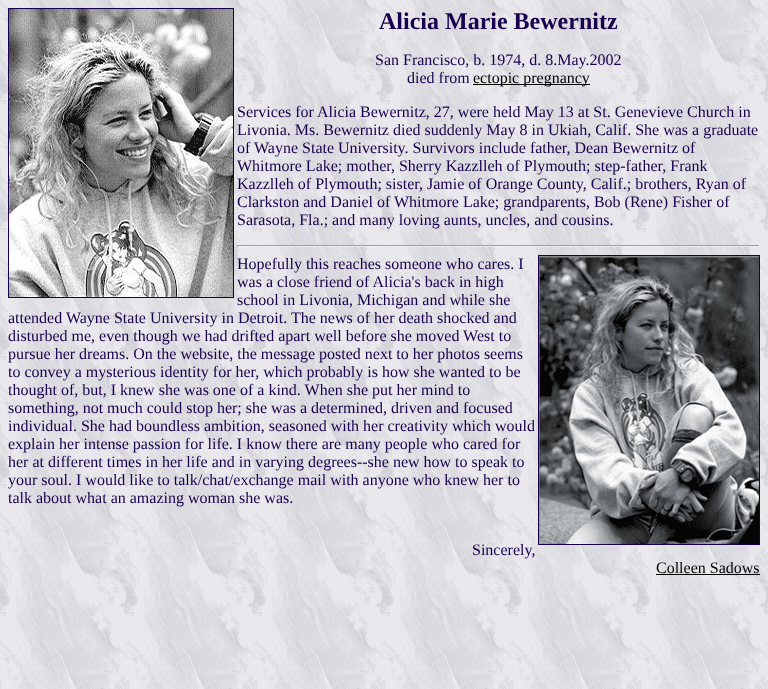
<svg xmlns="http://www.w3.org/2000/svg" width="768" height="689">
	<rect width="100%" height="100%" fill="#FFFFFF" />
	<image x="0" y="0" width="768" height="689" href="assets/img1.png" />
	<rect x="8.5" y="8.5" width="225" height="289" fill="none" stroke="#19004C" />
	<image x="9" y="9" width="224" height="288" href="assets/img2.png" />
	<text x="379" y="29" font-family="Liberation Serif" font-size="24" font-weight="700" fill="#19004C">Alicia Marie Bewernitz</text>
	<g font-family="Liberation Serif" font-size="16" fill="#19004C">
		<text x="375" y="65">San Francisco, b. 1974, d. 8.May.2002</text>
		<text x="407" y="83">died from</text>
	</g>
	<rect x="473" y="84" width="117" height="1" fill="#000000" />
	<text x="473" y="83" font-family="Liberation Serif" font-size="16" fill="#000000">ectopic pregnancy</text>
	<g font-family="Liberation Serif" font-size="16" fill="#19004C">
		<text x="237" y="117">Services for Alicia Bewernitz, 27, were held May 13 at St. Genevieve Church in</text>
		<text x="237" y="135">Livonia. Ms. Bewernitz died suddenly May 8 in Ukiah, Calif. She was a graduate</text>
		<text x="237" y="153">of Wayne State University. Survivors include father, Dean Bewernitz of</text>
		<text x="237" y="171">Whitmore Lake; mother, Sherry Kazzlleh of Plymouth; step-father, Frank</text>
		<text x="237" y="189">Kazzlleh of Plymouth; sister, Jamie of Orange County, Calif.; brothers, Ryan of</text>
		<text x="237" y="207">Clarkston and Daniel of Whitmore Lake; grandparents, Bob (Rene) Fisher of</text>
		<text x="237" y="225">Sarasota, Fla.; and many loving aunts, uncles, and cousins.</text>
	</g>
	<rect x="237" y="245" width="523" height="1" fill="#9F9F9F" />
	<rect x="759" y="245" width="1" height="2" fill="#EEEEEE" />
	<rect x="237" y="246" width="523" height="1" fill="#EEEEEE" />
	<rect x="237" y="245" width="1" height="2" fill="#9F9F9F" />
	<text x="237" y="269" font-family="Liberation Serif" font-size="16" fill="#19004C">Hopefully this reaches someone who cares. I</text>
	<rect x="538.5" y="255.5" width="221" height="289" fill="none" stroke="#19004C" />
	<image x="539" y="256" width="220" height="288" href="assets/img3.png" />
	<g font-family="Liberation Serif" font-size="16" fill="#19004C">
		<text x="237" y="287">was a close friend of Alicia's back in high</text>
		<text x="237" y="305">school in Livonia, Michigan and while she</text>
		<text x="8" y="323">attended Wayne State University in Detroit. The news of her death shocked and</text>
		<text x="8" y="341">disturbed me, even though we had drifted apart well before she moved West to</text>
		<text x="8" y="359">pursue her dreams. On the website, the message posted next to her photos seems</text>
		<text x="8" y="377">to convey a mysterious identity for her, which probably is how she wanted to be</text>
		<text x="8" y="395">thought of, but, I knew she was one of a kind. When she put her mind to</text>
		<text x="8" y="413">something, not much could stop her; she was a determined, driven and focused</text>
		<text x="8" y="431">individual. She had boundless ambition, seasoned with her creativity which would</text>
		<text x="8" y="449">explain her intense passion for life. I know there are many people who cared for</text>
		<text x="8" y="467">her at different times in her life and in varying degrees--she new how to speak to</text>
		<text x="8" y="485">your soul. I would like to talk/chat/exchange mail with anyone who knew her to</text>
		<text x="8" y="503">talk about what an amazing woman she was.</text>
		<text x="472" y="555">Sincerely,</text>
	</g>
	<text x="656" y="573" font-family="Liberation Serif" font-size="16" fill="#000000">Colleen Sadows</text>
	<rect x="656" y="574" width="104" height="1" fill="#000000" />
</svg>
